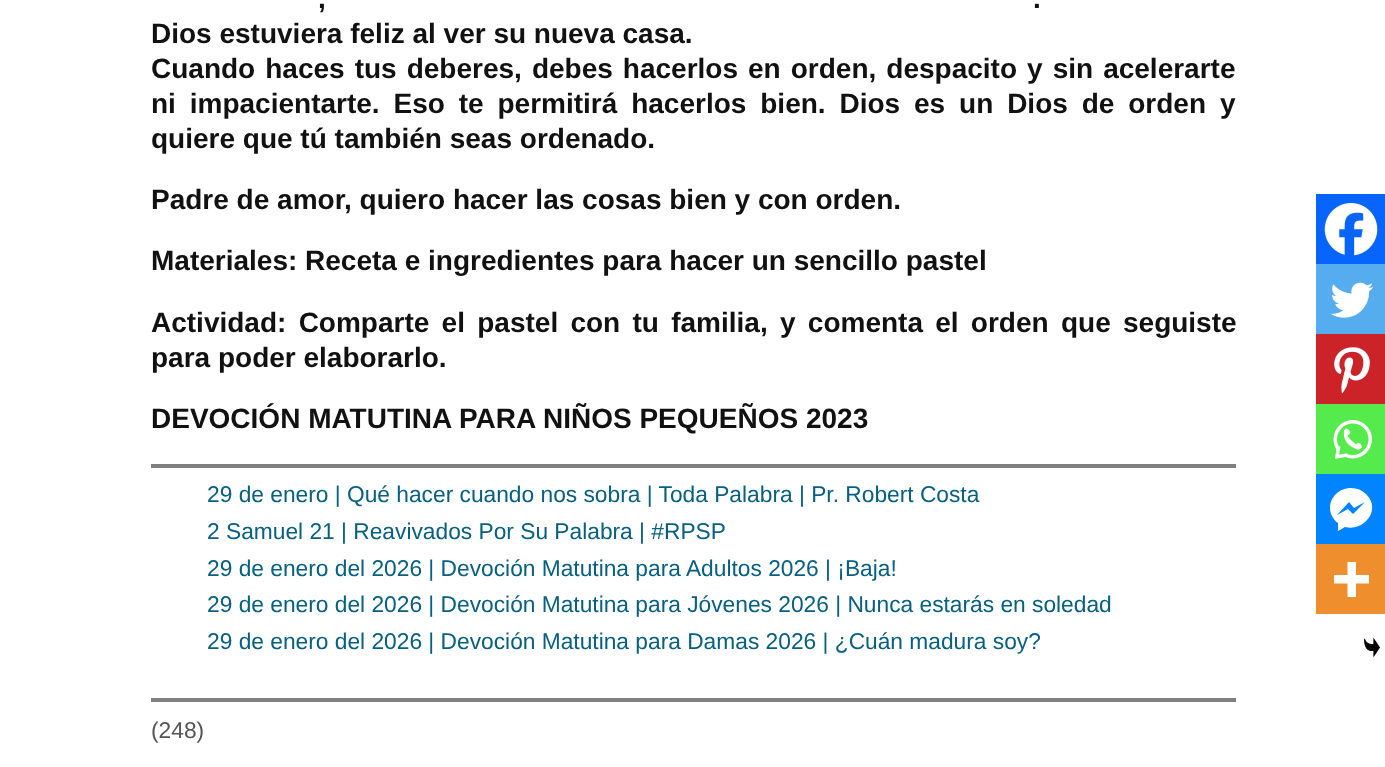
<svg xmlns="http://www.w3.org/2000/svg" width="1385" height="767">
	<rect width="100%" height="100%" fill="#FFFFFF" />
	<g font-family="Liberation Sans" font-size="28" font-weight="700" fill="#111111">
		<text x="318" y="8" word-spacing="4">,</text>
		<text x="1033" y="8" word-spacing="4">.</text>
		<text x="151" y="43">Dios estuviera feliz al ver su nueva casa.</text>
		<text x="151" y="78" word-spacing="2.25">Cuando haces tus deberes, debes hacerlos en orden, despacito y sin acelerarte</text>
		<text x="151" y="113" word-spacing="6.1">ni impacientarte. Eso te permitirá hacerlos bien. Dios es un Dios de orden y</text>
		<text x="151" y="148">quiere que tú también seas ordenado.</text>
		<text x="151" y="209">Padre de amor, quiero hacer las cosas bien y con orden.</text>
	</g>
	<rect x="1316" y="194" width="69" height="70" fill="#0765FE" />
	<image x="1324" y="203" width="54" height="53" href="assets/img1.png" />
	<rect x="1316" y="264" width="69" height="70" fill="#55ACEE" />
	<image x="1330" y="282" width="44" height="36" href="assets/img2.png" />
	<rect x="1316" y="334" width="69" height="70" fill="#CC2329" />
	<image x="1334" y="347" width="36" height="47" href="assets/img3.png" />
	<rect x="1316" y="404" width="69" height="70" fill="#55EB4C" />
	<image x="1333" y="420" width="39" height="39" href="assets/img4.png" />
	<rect x="1316" y="474" width="69" height="70" fill="#0084FF" />
	<path d="M1351 488C1332 488 1322 511 1338 523V531L1345 527C1364 532 1382 509 1366 494C1362 490 1357 488 1351 488ZM1353 514L1348 509L1337 515L1349 502L1354 508L1365 502Z" fill="#FFFFFF" />
	<rect x="1316" y="544" width="69" height="70" fill="#EE8E2D" />
	<path d="M1356 575V562H1347.5V575H1334V583.5H1347.5V597H1356V583.5H1369V575Z" fill="#FFFFFF" fill-rule="evenodd" />
	<image x="1364" y="637" width="16" height="21" href="assets/img5.png" />
	<g font-family="Liberation Sans" font-size="28" font-weight="700" fill="#111111">
		<text x="151" y="270">Materiales: Receta e ingredientes para hacer un sencillo pastel</text>
		<text x="151" y="332" word-spacing="4.5">Actividad: Comparte el pastel con tu familia, y comenta el orden que seguiste</text>
		<text x="151" y="367">para poder elaborarlo.</text>
		<text x="151" y="428">DEVOCIÓN MATUTINA PARA NIÑOS PEQUEÑOS 2023</text>
	</g>
	<rect x="151" y="464" width="1085" height="4" fill="#808080" />
	<g font-family="Liberation Sans" font-size="22.75" fill="#086081">
		<text x="207" y="502">29 de enero | Qué hacer cuando nos sobra | Toda Palabra | Pr. Robert Costa</text>
		<text x="207" y="539">2 Samuel 21 | Reavivados Por Su Palabra | #RPSP</text>
		<text x="207" y="576">29 de enero del 2026 | Devoción Matutina para Adultos 2026 | ¡Baja!</text>
		<text x="207" y="612">29 de enero del 2026 | Devoción Matutina para Jóvenes 2026 | Nunca estarás en soledad</text>
		<text x="207" y="649">29 de enero del 2026 | Devoción Matutina para Damas 2026 | ¿Cuán madura soy?</text>
	</g>
	<rect x="151" y="698" width="1085" height="4" fill="#808080" />
	<text x="151" y="738" font-family="Liberation Sans" font-size="22.75" fill="#555555">(248)</text>
</svg>
